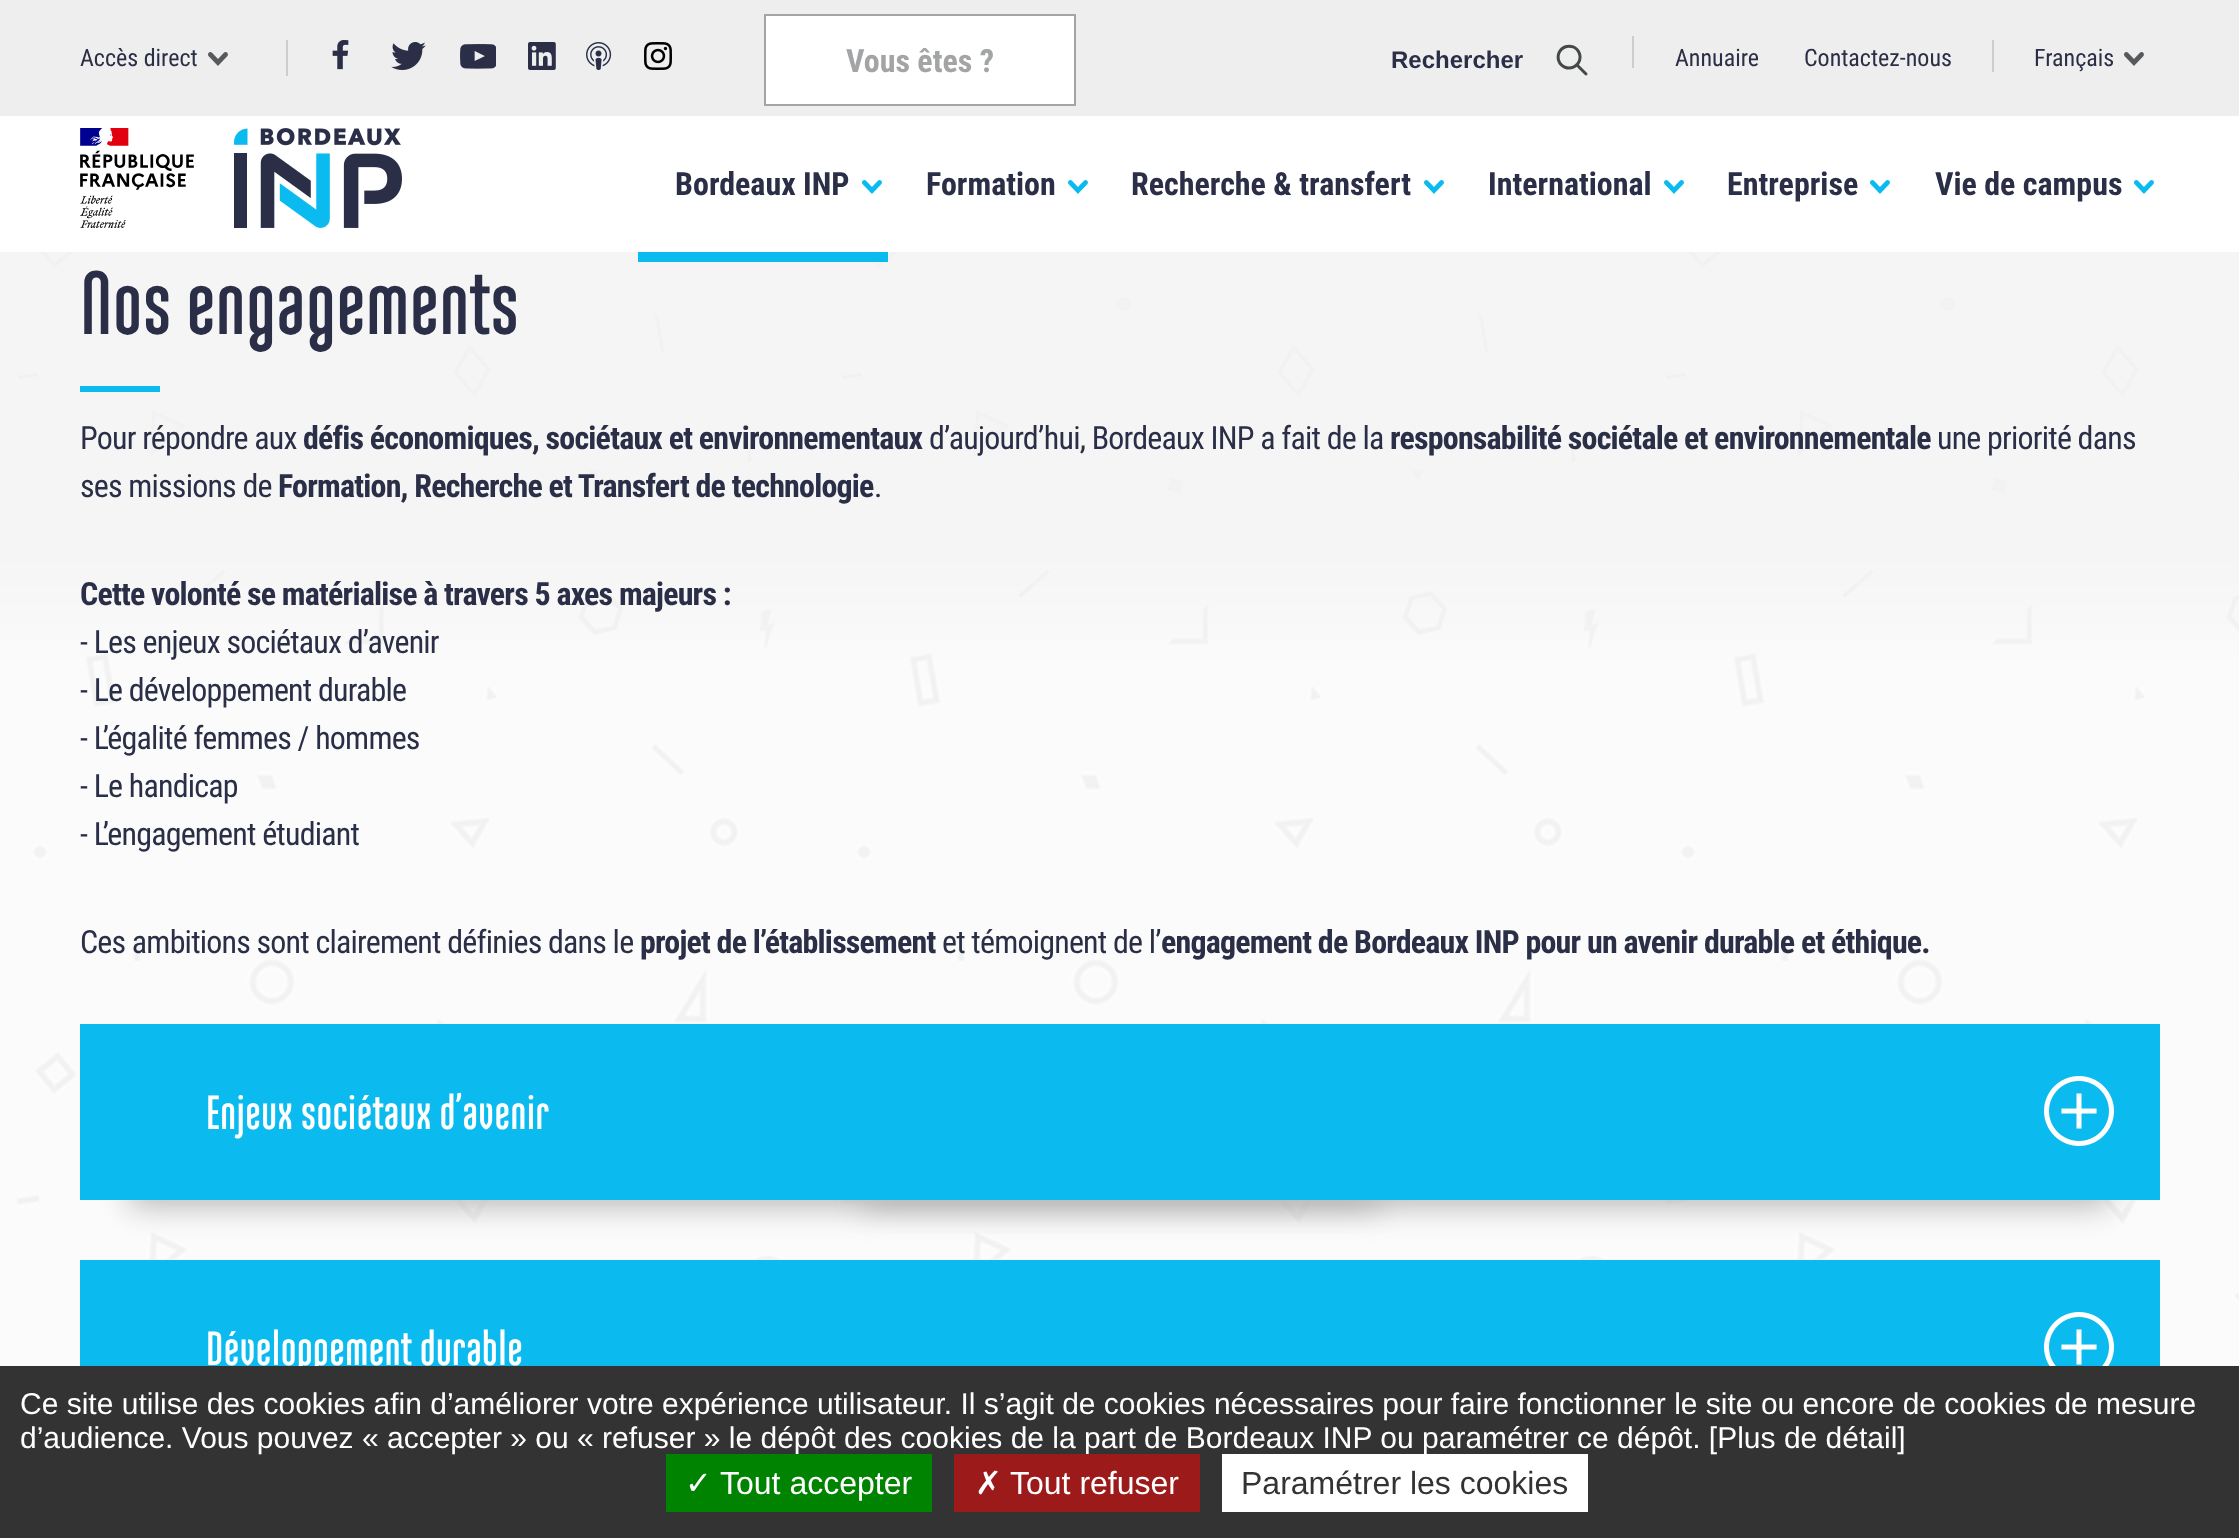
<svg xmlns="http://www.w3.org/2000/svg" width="2239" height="1538">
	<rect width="100%" height="100%" fill="#FFFFFF" />
	<rect x="0" y="0" width="2239" height="116" fill="#EEEEEE" />
	<text x="80" y="66" font-family="Roboto Condensed" font-size="24" fill="#2A2E46">Accès direct</text>
	<image x="208" y="52" width="20" height="14" href="assets/img1.png" />
	<rect x="286" y="40" width="2" height="36" fill="#CCCDCD" />
	<image x="332" y="40" width="17" height="30" href="assets/img2.png" />
	<image x="391" y="42" width="35" height="28" href="assets/img3.png" />
	<image x="460" y="44" width="36" height="25" href="assets/img4.png" />
	<image x="528" y="42" width="28" height="28" href="assets/img5.png" />
	<image x="586" y="42" width="26" height="28" href="assets/img6.png" />
	<image x="644" y="42" width="28" height="28" href="assets/img7.png" />
	<text x="1391" y="68" font-family="Liberation Sans" font-size="24" font-weight="700" fill="#2A2E46">Rechercher</text>
	<image x="1556" y="44" width="32" height="32" href="assets/img8.png" />
	<rect x="1632" y="36" width="2" height="32" fill="#CCCDCD" />
	<rect x="1992" y="40" width="2" height="32" fill="#CCCDCD" />
	<g font-family="Roboto Condensed" font-size="24" fill="#2A2E46">
		<text x="1675" y="66">Annuaire</text>
		<text x="1804" y="66">Contactez-nous</text>
		<text x="2034" y="66">Français</text>
	</g>
	<image x="2124" y="52" width="20" height="14" href="assets/img1.png" />
	<rect x="765" y="15" width="310" height="90" fill="#FFFFFF" stroke="#A2A4A5" stroke-width="2" />
	<text x="846" y="72" font-family="Roboto Condensed" font-size="32" font-weight="700" fill="#A2A4A5">Vous êtes ?</text>
	<image x="80" y="128" width="114" height="100" href="assets/img9.png" />
	<image x="234" y="128" width="168" height="100" href="assets/img10.png" />
	<image x="0" y="252" width="2239" height="1114" href="assets/img12.png" />
	<rect x="638" y="252" width="250" height="10" fill="#0BBBEF" />
	<text x="675" y="195" font-family="Roboto Condensed" font-size="32" font-weight="700" fill="#2A2E46">Bordeaux INP</text>
	<image x="862" y="180" width="20" height="14" href="assets/img11.png" />
	<text x="926" y="195" font-family="Roboto Condensed" font-size="32" font-weight="700" fill="#2A2E46">Formation</text>
	<image x="1068" y="180" width="20" height="14" href="assets/img11.png" />
	<text x="1131" y="195" font-family="Roboto Condensed" font-size="32" font-weight="700" fill="#2A2E46">Recherche &amp; transfert</text>
	<image x="1424" y="180" width="20" height="14" href="assets/img11.png" />
	<text x="1488" y="195" font-family="Roboto Condensed" font-size="32" font-weight="700" fill="#2A2E46">International</text>
	<image x="1664" y="180" width="20" height="14" href="assets/img11.png" />
	<text x="1727" y="195" font-family="Roboto Condensed" font-size="32" font-weight="700" fill="#2A2E46">Entreprise</text>
	<image x="1870" y="180" width="20" height="14" href="assets/img11.png" />
	<text x="1935" y="195" font-family="Roboto Condensed" font-size="32" font-weight="700" fill="#2A2E46">Vie de campus</text>
	<image x="2134" y="180" width="20" height="14" href="assets/img11.png" />
	<text x="80" y="334" font-family="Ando" font-size="89.5" font-weight="700" fill="#2A2E46">Nos engagements</text>
	<rect x="80" y="386" width="80" height="6" fill="#0BBBEF" />
	<text x="80" y="449" font-family="Roboto Condensed" font-size="32" letter-spacing="-0.8" fill="#2A2E46">Pour répondre aux</text>
	<text x="303" y="449" font-family="Roboto Condensed" font-size="32" font-weight="700" letter-spacing="-0.8" fill="#2A2E46">défis économiques, sociétaux et environnementaux</text>
	<text x="929" y="449" font-family="Roboto Condensed" font-size="32" letter-spacing="-0.8" fill="#2A2E46">d’aujourd’hui, Bordeaux INP a fait de la</text>
	<text x="1390" y="449" font-family="Roboto Condensed" font-size="32" font-weight="700" letter-spacing="-0.8" fill="#2A2E46">responsabilité sociétale et environnementale</text>
	<g font-family="Roboto Condensed" font-size="32" letter-spacing="-0.8" fill="#2A2E46">
		<text x="1937" y="449">une priorité dans</text>
		<text x="80" y="497">ses missions de</text>
	</g>
	<text x="278" y="497" font-family="Roboto Condensed" font-size="32" font-weight="700" letter-spacing="-0.8" fill="#2A2E46">Formation, Recherche et Transfert de technologie</text>
	<text x="874" y="497" font-family="Roboto Condensed" font-size="32" letter-spacing="-0.8" fill="#2A2E46">.</text>
	<text x="80" y="605" font-family="Roboto Condensed" font-size="32" font-weight="700" letter-spacing="-0.8" fill="#2A2E46">Cette volonté se matérialise à travers 5 axes majeurs :</text>
	<g font-family="Roboto Condensed" font-size="32" letter-spacing="-0.8" fill="#2A2E46">
		<text x="80" y="653">- Les enjeux sociétaux d’avenir</text>
		<text x="80" y="701">- Le développement durable</text>
		<text x="80" y="749">- L’égalité femmes / hommes</text>
		<text x="80" y="797">- Le handicap</text>
		<text x="80" y="845">- L’engagement étudiant</text>
		<text x="80" y="953">Ces ambitions sont clairement définies dans le</text>
	</g>
	<text x="640" y="953" font-family="Roboto Condensed" font-size="32" font-weight="700" letter-spacing="-0.8" fill="#2A2E46">projet de l’établissement</text>
	<text x="942" y="953" font-family="Roboto Condensed" font-size="32" letter-spacing="-0.8" fill="#2A2E46">et témoignent de l’</text>
	<text x="1161" y="953" font-family="Roboto Condensed" font-size="32" font-weight="700" letter-spacing="-0.8" fill="#2A2E46">engagement de Bordeaux INP pour un avenir durable et éthique.</text>
	<rect x="130" y="1172" width="1248" height="34" fill="#B5B5B5" filter="blur(15px)" />
	<rect x="862" y="1172" width="1248" height="34" fill="#B5B5B5" filter="blur(15px)" />
	<rect x="80" y="1024" width="2080" height="176" fill="#0BBBEF" />
	<text x="206" y="1129" font-family="Ando" font-size="48" font-weight="700" fill="#FFFFFF">Enjeux sociétaux d’avenir</text>
	<image x="2044" y="1076" width="70" height="70" href="assets/img13.png" />
	<rect x="80" y="1260" width="2080" height="106" fill="#0BBBEF" />
	<text x="206" y="1365" font-family="Ando" font-size="48" font-weight="700" fill="#FFFFFF">Développement durable</text>
	<image x="2044" y="1312" width="70" height="54" href="assets/img14.png" />
	<rect x="0" y="1366" width="2239" height="172" fill="#333333" />
	<g font-family="Liberation Sans" font-size="30" fill="#FFFFFF">
		<text x="20" y="1414">Ce site utilise des cookies afin d’améliorer votre expérience utilisateur. Il s’agit de cookies nécessaires pour faire fonctionner le site ou encore de cookies de mesure</text>
		<text x="20" y="1448">d’audience. Vous pouvez « accepter » ou « refuser » le dépôt des cookies de la part de Bordeaux INP ou paramétrer ce dépôt. [Plus de détail]</text>
	</g>
	<rect x="666" y="1454" width="266" height="58" fill="#008300" />
	<text x="685" y="1494" font-family="DejaVu Sans" font-size="32" fill="#FFFFFF">✓</text>
	<text x="720" y="1494" font-family="Liberation Sans" font-size="32" fill="#FFFFFF">Tout accepter</text>
	<rect x="954" y="1454" width="246" height="58" fill="#9C1A1A" />
	<text x="975" y="1494" font-family="DejaVu Sans" font-size="32" fill="#FFFFFF">✗</text>
	<text x="1010" y="1494" font-family="Liberation Sans" font-size="32" fill="#FFFFFF">Tout refuser</text>
	<rect x="1222" y="1454" width="366" height="58" fill="#FFFFFF" />
	<text x="1241" y="1494" font-family="Liberation Sans" font-size="32" fill="#333333">Paramétrer les cookies</text>
</svg>
